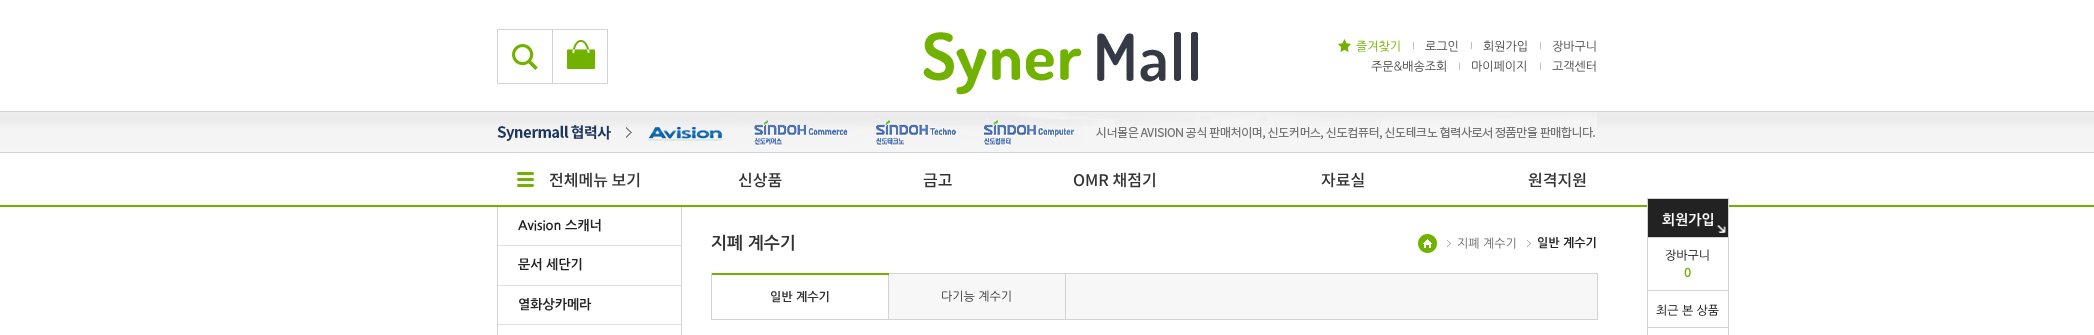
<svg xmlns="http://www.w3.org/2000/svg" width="2094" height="335">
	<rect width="100%" height="100%" fill="#FFFFFF" />
	<rect x="0" y="111" width="2094" height="1" fill="#D3D3D3" />
	<image x="497" y="29" width="56" height="55" href="assets/img1.png" />
	<image x="553" y="29" width="55" height="55" href="assets/img2.png" />
	<image x="923" y="32" width="275" height="63" href="assets/img3.png" />
	<image x="1338" y="39" width="13" height="13" href="assets/img4.png" />
	<text x="1356" y="50" font-family="NanumGothic" font-size="12" fill="#71B200">즐겨찾기</text>
	<rect x="1413" y="42" width="1" height="7" fill="#C1C1C1" />
	<text x="1425" y="50" font-family="NanumGothic" font-size="12" fill="#444444">로그인</text>
	<rect x="1471" y="42" width="1" height="7" fill="#C1C1C1" />
	<text x="1483" y="50" font-family="NanumGothic" font-size="12" fill="#444444">회원가입</text>
	<rect x="1540" y="42" width="1" height="7" fill="#C1C1C1" />
	<g font-family="NanumGothic" font-size="12" fill="#444444">
		<text x="1552" y="50">장바구니</text>
		<text x="1371" y="70">주문&amp;배송조회</text>
	</g>
	<rect x="1459" y="63" width="1" height="7" fill="#C1C1C1" />
	<text x="1471" y="70" font-family="NanumGothic" font-size="12" fill="#444444">마이페이지</text>
	<rect x="1540" y="63" width="1" height="7" fill="#C1C1C1" />
	<text x="1552" y="70" font-family="NanumGothic" font-size="12" fill="#444444">고객센터</text>
	<image x="0" y="112" width="2094" height="40" href="assets/img5.png" />
	<rect x="0" y="152" width="2094" height="1" fill="#D3D3D3" />
	<image x="497" y="112" width="1100" height="35" href="assets/img6.png" />
	<rect x="0" y="205" width="2094" height="2" fill="#71B200" />
	<image x="517" y="172" width="17" height="15" href="assets/img7.png" />
	<g font-family="Noto Sans KR" font-size="16" font-weight="500" fill="#333333">
		<text x="549" y="186">전체메뉴 보기</text>
		<text x="738" y="186">신상품</text>
		<text x="923" y="186">금고</text>
		<text x="1073" y="186">OMR 채점기</text>
		<text x="1321" y="186">자료실</text>
		<text x="1528" y="186">원격지원</text>
	</g>
	<rect x="681" y="207" width="1" height="128" fill="#D3D3D3" />
	<rect x="497" y="207" width="1" height="128" fill="#D3D3D3" />
	<text x="518" y="230" font-family="NanumGothic" font-size="13" font-weight="700" fill="#222222">Avision 스캐너</text>
	<rect x="498" y="245" width="183" height="1" fill="#E0E0E0" />
	<text x="518" y="269" font-family="NanumGothic" font-size="13" font-weight="700" fill="#222222">문서 세단기</text>
	<rect x="498" y="285" width="183" height="1" fill="#E0E0E0" />
	<text x="518" y="309" font-family="NanumGothic" font-size="13" font-weight="700" fill="#222222">열화상카메라</text>
	<rect x="498" y="324" width="183" height="1" fill="#E0E0E0" />
	<text x="711" y="249" font-family="NanumGothic" font-size="17" font-weight="700" fill="#333333">지폐 계수기</text>
	<image x="1418" y="234" width="19" height="19" href="assets/img8.png" />
	<image x="1447" y="240" width="4" height="7" href="assets/img9.png" />
	<text x="1457" y="247" font-family="NanumGothic" font-size="12" fill="#666666">지폐 계수기</text>
	<image x="1527" y="240" width="4" height="7" href="assets/img9.png" />
	<text x="1537" y="247" font-family="NanumGothic" font-size="12" font-weight="700" fill="#222222">일반 계수기</text>
	<rect x="889" y="274" width="708" height="45" fill="#F7F7F7" />
	<rect x="711.5" y="273.5" width="886" height="46" fill="none" stroke="#D3D3D3" />
	<rect x="712" y="273" width="177" height="2" fill="#71B200" />
	<rect x="888" y="275" width="1" height="44" fill="#D3D3D3" />
	<text x="770" y="301" font-family="NanumGothic" font-size="12" font-weight="700" fill="#333333">일반 계수기</text>
	<rect x="1065" y="274" width="1" height="45" fill="#D3D3D3" />
	<text x="941" y="300" font-family="NanumGothic" font-size="12" fill="#333333">다기능 계수기</text>
	<image x="1648" y="199" width="80" height="38" href="assets/img10.png" />
	<rect x="1647" y="198" width="82" height="1" fill="#D3D3D3" />
	<rect x="1647" y="237" width="82" height="1" fill="#D3D3D3" />
	<rect x="1728" y="237" width="1" height="98" fill="#D3D3D3" />
	<rect x="1728" y="198" width="1" height="40" fill="#D3D3D3" />
	<rect x="1647" y="290" width="82" height="1" fill="#D3D3D3" />
	<rect x="1647" y="237" width="1" height="54" fill="#D3D3D3" />
	<rect x="1647" y="198" width="1" height="40" fill="#D3D3D3" />
	<text x="1662" y="224" font-family="'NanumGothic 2'" font-size="14" font-weight="700" fill="#FFFFFF">회원가입</text>
	<text x="1665" y="259" font-family="NanumGothic" font-size="12" fill="#000000">장바구니</text>
	<text x="1684" y="277" font-family="NanumGothic" font-size="12" font-weight="700" fill="#71B200">0</text>
	<rect x="1647" y="327" width="82" height="1" fill="#D3D3D3" />
	<rect x="1647" y="291" width="1" height="44" fill="#D3D3D3" />
	<text x="1656" y="314" font-family="NanumGothic" font-size="12" fill="#000000">최근 본 상품</text>
</svg>
